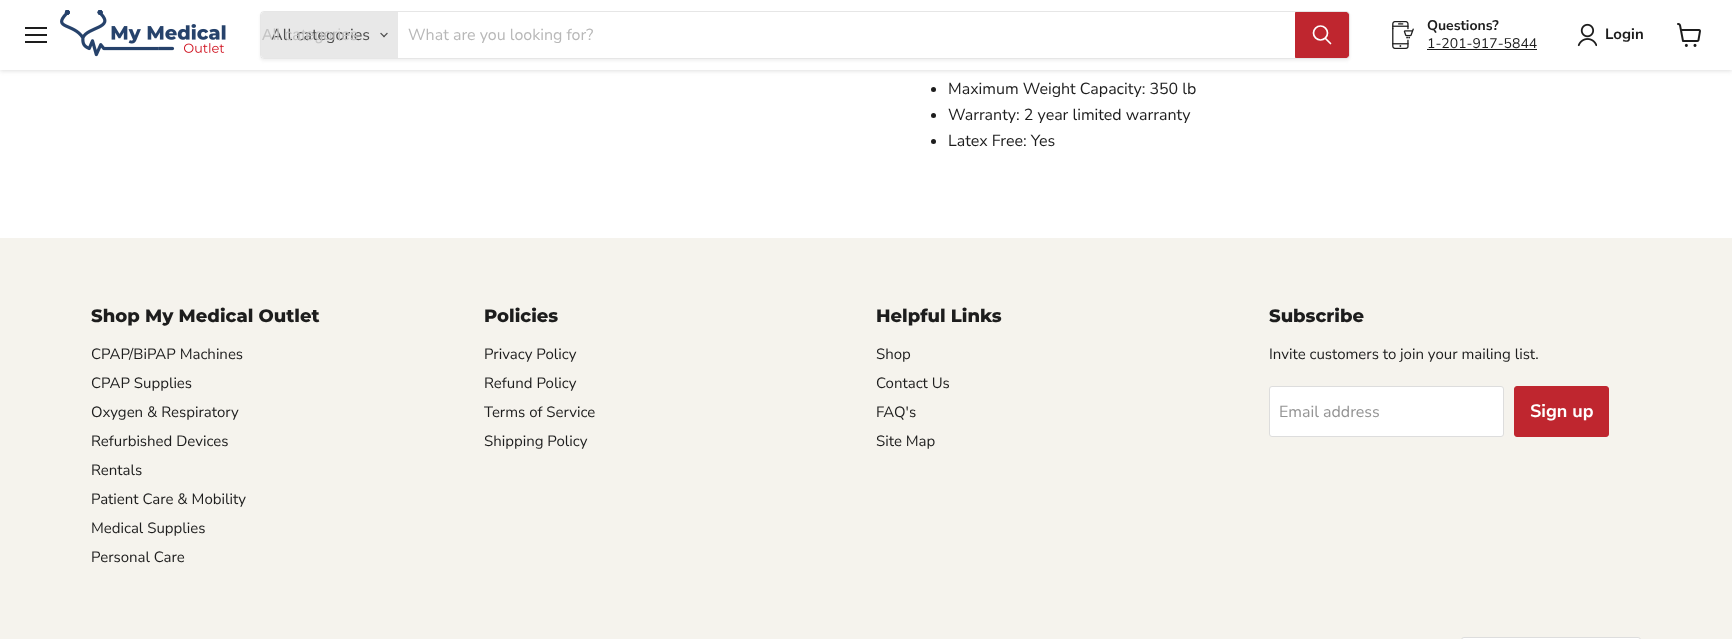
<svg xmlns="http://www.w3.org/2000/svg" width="1732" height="639">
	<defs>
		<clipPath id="clip1"><path d="M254 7H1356V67H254ZM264 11H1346C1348 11 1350 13 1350 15V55C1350 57 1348 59 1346 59H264C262 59 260 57 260 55V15C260 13 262 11 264 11Z" clip-rule="evenodd" /></clipPath>
	</defs>
	<rect width="100%" height="100%" fill="#FFFFFF" />
	<rect x="0" y="1" width="1732" height="70" fill="#808080" fill-opacity="0.25" filter="blur(2px)" />
	<rect x="0" y="0" width="1732" height="70" fill="#FFFFFF" />
	<rect x="25" y="27" width="22" height="2" fill="#1D1D1D" />
	<rect x="25" y="34" width="22" height="2" fill="#1D1D1D" />
	<rect x="25" y="41" width="22" height="2" fill="#1D1D1D" />
	<image x="60" y="10" width="166" height="47" href="assets/img1.png" />
	<g clip-path="url(#clip1)">
		<rect x="260" y="13" width="1090" height="48" rx="4" fill="#808080" fill-opacity="0.11" filter="blur(1.5px)" />
	</g>
	<rect x="260.5" y="11.5" width="1089" height="47" rx="3.5" fill="none" stroke="#808080" stroke-opacity="0.2" />
	<path d="M264 12H398V58H264C262.5 58 261 56.5 261 55V15C261 13.5 262.5 12 264 12Z" fill="#E8E8E8" />
	<text x="271" y="40" font-family="Nunito Sans" font-size="16" fill="#4D4D4D">All categories</text>
	<text x="262" y="40" font-family="Liberation Sans" font-size="16" fill="#C4C4C4">All categories</text>
	<image x="380" y="32" width="8" height="6" href="assets/img2.png" />
	<text x="408" y="40" font-family="Nunito Sans" font-size="16" fill="#B8B8B8">What are you looking for?</text>
	<path d="M1295.5 12.5H1346C1347.5 12.5 1348.5 13.5 1348.5 15V55C1348.5 56.5 1347.5 57.5 1346 57.5H1295.5Z" fill="#BF262F" stroke="#BF262F" />
	<path d="M1330.5 43.5L1325.5 38.5" fill="none" stroke="#FFFFFF" stroke-width="1.7" stroke-linecap="round" />
	<circle cx="1320.5" cy="33" r="7" fill="none" stroke="#FFFFFF" stroke-width="1.7" />
	<image x="1392" y="21" width="22" height="28" href="assets/img3.png" />
	<text x="1427" y="30" font-family="Nunito Sans" font-size="14" font-weight="700" fill="#1D1D1D">Questions?</text>
	<text x="1427" y="48" font-family="Nunito Sans" font-size="14" fill="#1D1D1D">1-201-917-5844</text>
	<rect x="1427" y="49" width="110" height="1" fill="#1D1D1D" />
	<image x="1577" y="23" width="20" height="24" href="assets/img4.png" />
	<text x="1605" y="39" font-family="Nunito Sans" font-size="15" font-weight="700" fill="#1D1D1D">Login</text>
	<image x="1677" y="23" width="24" height="24" href="assets/img5.png" />
	<circle cx="933.5" cy="89.5" r="2.5" fill="#1D1D1D" />
	<text x="948" y="94" font-family="Nunito Sans" font-size="16" fill="#1D1D1D">Maximum Weight Capacity: 350 lb</text>
	<circle cx="933.5" cy="115.5" r="2.5" fill="#1D1D1D" />
	<text x="948" y="120" font-family="Nunito Sans" font-size="16" fill="#1D1D1D">Warranty: 2 year limited warranty</text>
	<circle cx="933.5" cy="141.5" r="2.5" fill="#1D1D1D" />
	<text x="948" y="146" font-family="Nunito Sans" font-size="16" fill="#1D1D1D">Latex Free: Yes</text>
	<rect x="0" y="238" width="1732" height="401" fill="#F5F3ED" />
	<text x="91" y="322" font-family="Montserrat" font-size="18" font-weight="800" fill="#1D1D1D">Shop My Medical Outlet</text>
	<g font-family="Nunito Sans" font-size="15" fill="#1D1D1D">
		<text x="91" y="359">CPAP/BiPAP Machines</text>
		<text x="91" y="388">CPAP Supplies</text>
		<text x="91" y="417">Oxygen &amp; Respiratory</text>
		<text x="91" y="446">Refurbished Devices</text>
		<text x="91" y="475">Rentals</text>
		<text x="91" y="504">Patient Care &amp; Mobility</text>
		<text x="91" y="533">Medical Supplies</text>
		<text x="91" y="562">Personal Care</text>
	</g>
	<text x="484" y="322" font-family="Montserrat" font-size="18" font-weight="800" fill="#1D1D1D">Policies</text>
	<g font-family="Nunito Sans" font-size="15" fill="#1D1D1D">
		<text x="484" y="359">Privacy Policy</text>
		<text x="484" y="388">Refund Policy</text>
		<text x="484" y="417">Terms of Service</text>
		<text x="484" y="446">Shipping Policy</text>
	</g>
	<text x="876" y="322" font-family="Montserrat" font-size="18" font-weight="800" fill="#1D1D1D">Helpful Links</text>
	<g font-family="Nunito Sans" font-size="15" fill="#1D1D1D">
		<text x="876" y="359">Shop</text>
		<text x="876" y="388">Contact Us</text>
		<text x="876" y="417">FAQ's</text>
		<text x="876" y="446">Site Map</text>
	</g>
	<text x="1269" y="322" font-family="Montserrat" font-size="18" font-weight="800" fill="#1D1D1D">Subscribe</text>
	<text x="1269" y="359" font-family="Nunito Sans" font-size="15" fill="#1D1D1D">Invite customers to join your mailing list.</text>
	<rect x="1269.5" y="386.5" width="234" height="50" rx="2.5" fill="#FFFFFF" stroke="#DDDDDD" />
	<text x="1279" y="417" font-family="Nunito Sans" font-size="16" fill="#949494">Email address</text>
	<rect x="1514.5" y="386.5" width="94" height="50" rx="2.5" fill="#BF262F" stroke="#BF262F" />
	<text x="1530" y="417" font-family="Nunito Sans" font-size="18" font-weight="700" fill="#FFFFFF">Sign up</text>
	<rect x="1461.5" y="637.5" width="179" height="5" rx="2.5" fill="#FFFFFF" stroke="#DDDDDD" />
</svg>
